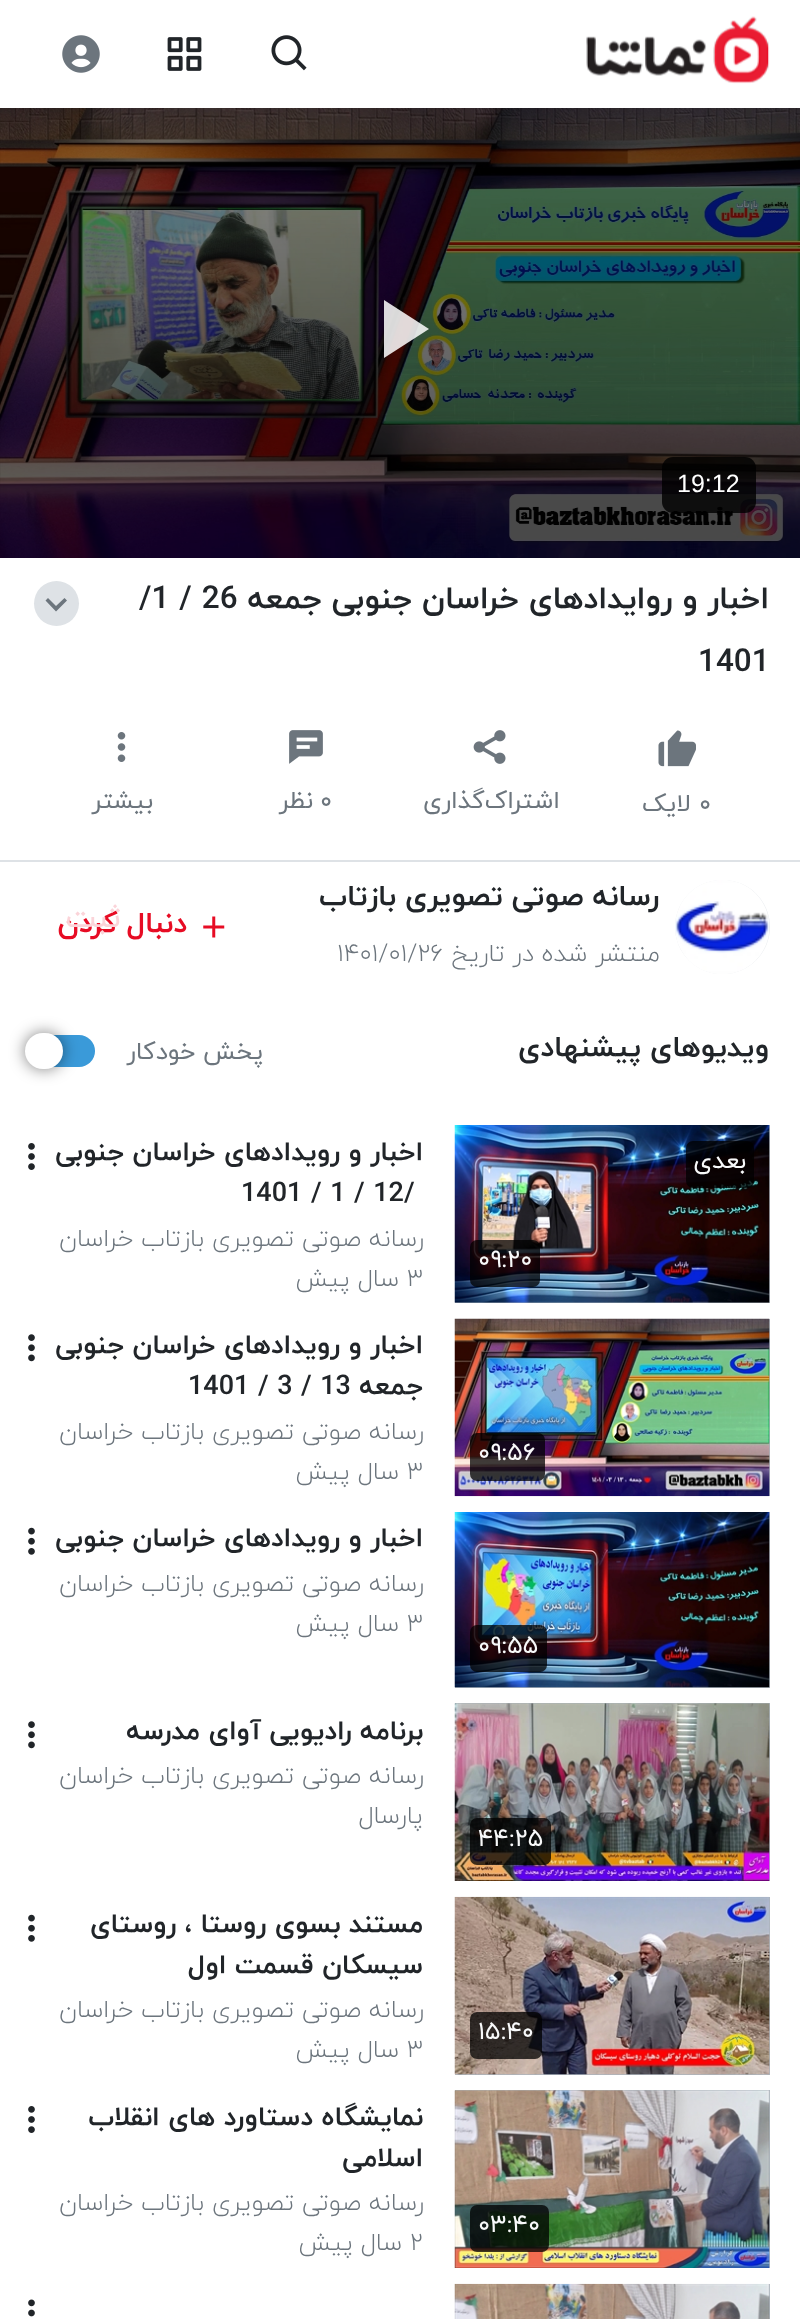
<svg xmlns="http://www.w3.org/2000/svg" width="800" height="2319">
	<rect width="100%" height="100%" fill="#FFFFFF" />
	<image x="586" y="16" width="184" height="68" href="assets/img1.png" />
	<image x="271" y="35" width="36" height="36" href="assets/img2.png" />
	<image x="167" y="37" width="35" height="34" href="assets/img3.png" />
	<image x="62" y="35" width="38" height="38" href="assets/img4.png" />
	<image x="0" y="108" width="800" height="450" href="assets/img5.png" />
	<path d="M384 300V358L429 329Z" fill="#FFFFFF" fill-opacity="0.85" />
	<rect x="662" y="457" width="94" height="56" rx="11" fill="#000000" fill-opacity="0.8" />
	<text x="677" y="492" font-family="Liberation Sans" font-size="25" fill="#FFFFFF">19:12</text>
	<text x="769" y="608" font-family="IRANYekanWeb" font-size="31.5" font-weight="700" direction="rtl" fill="#212529">اخبار و روایدادهای خراسان جنوبی جمعه</text>
	<g font-family="IRANYekanWeb" font-size="31.5" font-weight="700" fill="#212529">
		<text x="139" y="608">/1 / 26</text>
		<text x="698" y="671">1401</text>
	</g>
	<circle cx="56.5" cy="603.5" r="22.5" fill="#DEE2E6" />
	<path d="M64.5 598L56 606L48 598L45.5 600.5L56 611.5L67 600.5Z" fill="#6C757D" />
	<image x="658" y="730" width="38" height="37" href="assets/img6.png" />
	<text x="699" y="811" font-family="IRANYekanWeb" font-size="24.75" fill="#6C757D">۰</text>
	<text x="691" y="811" font-family="IRANYekanWeb" font-size="24.75" direction="rtl" fill="#6C757D">لایک</text>
	<image x="473" y="730" width="33" height="34" href="assets/img7.png" />
	<text x="560" y="808" font-family="IRANYekanWeb" font-size="24.75" direction="rtl" fill="#6C757D">اشتراک‌گذاری</text>
	<image x="289" y="730" width="34" height="34" href="assets/img8.png" />
	<text x="320" y="808" font-family="IRANYekanWeb" font-size="24.75" fill="#6C757D">۰</text>
	<text x="313" y="808" font-family="IRANYekanWeb" font-size="24.75" direction="rtl" fill="#6C757D">نظر</text>
	<image x="117" y="732" width="9" height="30" href="assets/img9.png" />
	<text x="153" y="808" font-family="IRANYekanWeb" font-size="24.75" direction="rtl" fill="#6C757D">بیشتر</text>
	<rect x="0" y="860" width="800" height="2" fill="#DEE2E6" />
	<rect x="675" y="880" width="95" height="94" rx="47" fill="#E9ECEF" />
	<image x="675" y="880" width="94" height="94" href="assets/img10.png" />
	<text x="659" y="905" font-family="IRANYekanWeb" font-size="29.25" font-weight="700" direction="rtl" fill="#212529">رسانه صوتی تصویری بازتاب</text>
	<text x="660" y="961" font-family="IRANYekanWeb" font-size="24.75" font-weight="300" direction="rtl" fill="#6C757D">منتشر شده در تاریخ</text>
	<text x="337" y="961" font-family="IRANYekanWeb" font-size="24.75" font-weight="300" fill="#6C757D">۱۴۰۱/۰۱/۲۶</text>
	<image x="203" y="916" width="22" height="22" href="assets/img11.png" />
	<text x="187" y="932" font-family="IRANYekanWeb" font-size="29.25" font-weight="700" direction="rtl" fill="#E70C24">دنبال کردن</text>
	<text x="121" y="927" font-family="IRANYekanWeb" font-size="31.5" direction="rtl" fill="#FBD4D9">ثبت</text>
	<text x="769" y="1056" font-family="IRANYekanWeb" font-size="29.25" font-weight="700" direction="rtl" fill="#212529">ویدیوهای پیشنهادی</text>
	<rect x="32" y="1035" width="63" height="32" rx="16" fill="#3A9AD9" />
	<rect x="25" y="1033" width="38" height="36" rx="18" fill="#000000" fill-opacity="0.5" filter="blur(8px)" />
	<rect x="25" y="1033" width="38" height="36" rx="18" fill="#FFFFFF" />
	<text x="263" y="1059" font-family="IRANYekanWeb" font-size="24.75" direction="rtl" fill="#6C757D">پخش خودکار</text>
	<rect x="455" y="1125" width="315" height="178" fill="#ADB5BD" />
	<image x="454" y="1125" width="316" height="178" href="assets/img12.png" />
	<rect x="686" y="1141" width="68" height="47" rx="7" fill="#000000" fill-opacity="0.75" />
	<text x="746" y="1168" font-family="IRANYekanWeb" font-size="24.75" direction="rtl" fill="#F8F9FA">بعدی</text>
	<rect x="470" y="1240" width="70" height="47" rx="7" fill="#000000" fill-opacity="0.75" />
	<text x="478" y="1267" font-family="IRANYekanWeb" font-size="24.75" fill="#F8F9FA">۰۹:۲۰</text>
	<text x="423" y="1160" font-family="IRANYekanWeb" font-size="27" font-weight="700" direction="rtl" fill="#212529">اخبار و رویدادهای خراسان جنوبی</text>
	<text x="241" y="1201" font-family="IRANYekanWeb" font-size="27" font-weight="700" fill="#212529">1401 / 1 / 12/</text>
	<image x="28" y="1143" width="7" height="27" href="assets/img13.png" />
	<text x="424" y="1246" font-family="IRANYekanWeb" font-size="24.75" font-weight="300" direction="rtl" fill="#6C757D">رسانه صوتی تصویری بازتاب خراسان</text>
	<text x="407" y="1286" font-family="IRANYekanWeb" font-size="24.75" font-weight="300" fill="#6C757D">۳</text>
	<text x="399" y="1286" font-family="IRANYekanWeb" font-size="24.75" font-weight="300" direction="rtl" fill="#6C757D">سال پیش</text>
	<rect x="769" y="1319" width="1" height="177" fill="#ADB5BD" />
	<image x="454" y="1318" width="316" height="179" href="assets/img14.png" />
	<rect x="470" y="1433" width="75" height="48" rx="7" fill="#000000" fill-opacity="0.75" />
	<text x="478" y="1460" font-family="IRANYekanWeb" font-size="24.75" fill="#F8F9FA">۰۹:۵۶</text>
	<g font-family="IRANYekanWeb" font-size="27" font-weight="700" direction="rtl" fill="#212529">
		<text x="423" y="1353">اخبار و رویدادهای خراسان جنوبی</text>
		<text x="423" y="1394">جمعه</text>
	</g>
	<text x="188" y="1394" font-family="IRANYekanWeb" font-size="27" font-weight="700" fill="#212529">1401 / 3 / 13</text>
	<image x="28" y="1334" width="7" height="28" href="assets/img15.png" />
	<text x="424" y="1439" font-family="IRANYekanWeb" font-size="24.75" font-weight="300" direction="rtl" fill="#6C757D">رسانه صوتی تصویری بازتاب خراسان</text>
	<text x="407" y="1479" font-family="IRANYekanWeb" font-size="24.75" font-weight="300" fill="#6C757D">۳</text>
	<text x="399" y="1479" font-family="IRANYekanWeb" font-size="24.75" font-weight="300" direction="rtl" fill="#6C757D">سال پیش</text>
	<text x="423" y="1546" font-family="IRANYekanWeb" font-size="27" font-weight="700" direction="rtl" fill="#212529">اخبار و رویدادهای خراسان جنوبی</text>
	<image x="28" y="1527" width="7" height="28" href="assets/img16.png" />
	<text x="424" y="1591" font-family="IRANYekanWeb" font-size="24.75" font-weight="300" direction="rtl" fill="#6C757D">رسانه صوتی تصویری بازتاب خراسان</text>
	<text x="407" y="1631" font-family="IRANYekanWeb" font-size="24.75" font-weight="300" fill="#6C757D">۳</text>
	<text x="399" y="1631" font-family="IRANYekanWeb" font-size="24.75" font-weight="300" direction="rtl" fill="#6C757D">سال پیش</text>
	<rect x="455" y="1512" width="315" height="176" fill="#ADB5BD" />
	<image x="454" y="1512" width="316" height="176" href="assets/img17.png" />
	<rect x="470" y="1625" width="77" height="47" rx="7" fill="#000000" fill-opacity="0.75" />
	<text x="478" y="1653" font-family="IRANYekanWeb" font-size="24.75" fill="#F8F9FA">۰۹:۵۵</text>
	<text x="423" y="1739" font-family="IRANYekanWeb" font-size="27" font-weight="700" direction="rtl" fill="#212529">برنامه رادیویی آوای مدرسه</text>
	<image x="28" y="1721" width="7" height="28" href="assets/img15.png" />
	<g font-family="IRANYekanWeb" font-size="24.75" font-weight="300" direction="rtl" fill="#6C757D">
		<text x="424" y="1783">رسانه صوتی تصویری بازتاب خراسان</text>
		<text x="423" y="1823">پارسال</text>
	</g>
	<rect x="455" y="1703" width="315" height="178" fill="#ADB5BD" />
	<image x="454" y="1703" width="316" height="178" href="assets/img18.png" />
	<rect x="470" y="1818" width="81" height="47" rx="7" fill="#000000" fill-opacity="0.75" />
	<text x="478" y="1846" font-family="IRANYekanWeb" font-size="24.75" fill="#F8F9FA">۴۴:۲۵</text>
	<rect x="455" y="1897" width="315" height="178" fill="#ADB5BD" />
	<image x="454" y="1896" width="316" height="179" href="assets/img19.png" />
	<rect x="470" y="2012" width="72" height="47" rx="7" fill="#000000" fill-opacity="0.75" />
	<text x="478" y="2039" font-family="IRANYekanWeb" font-size="24.75" fill="#F8F9FA">۱۵:۴۰</text>
	<g font-family="IRANYekanWeb" font-size="27" font-weight="700" direction="rtl" fill="#212529">
		<text x="423" y="1932">مستند بسوی روستا ، روستای</text>
		<text x="423" y="1973">سیسکان قسمت اول</text>
	</g>
	<image x="28" y="1914" width="7" height="28" href="assets/img16.png" />
	<text x="424" y="2017" font-family="IRANYekanWeb" font-size="24.75" font-weight="300" direction="rtl" fill="#6C757D">رسانه صوتی تصویری بازتاب خراسان</text>
	<text x="407" y="2057" font-family="IRANYekanWeb" font-size="24.75" font-weight="300" fill="#6C757D">۳</text>
	<text x="399" y="2057" font-family="IRANYekanWeb" font-size="24.75" font-weight="300" direction="rtl" fill="#6C757D">سال پیش</text>
	<rect x="455" y="2090" width="315" height="178" fill="#ADB5BD" />
	<image x="454" y="2090" width="316" height="178" href="assets/img20.png" />
	<rect x="470" y="2205" width="79" height="47" rx="7" fill="#000000" fill-opacity="0.75" />
	<text x="478" y="2232" font-family="IRANYekanWeb" font-size="24.75" fill="#F8F9FA">۰۳:۴۰</text>
	<g font-family="IRANYekanWeb" font-size="27" font-weight="700" direction="rtl" fill="#212529">
		<text x="423" y="2125">نمایشگاه دستاورد های انقلاب</text>
		<text x="423" y="2166">اسلامی</text>
	</g>
	<image x="28" y="2106" width="7" height="27" href="assets/img13.png" />
	<text x="424" y="2210" font-family="IRANYekanWeb" font-size="24.75" font-weight="300" direction="rtl" fill="#6C757D">رسانه صوتی تصویری بازتاب خراسان</text>
	<text x="410" y="2250" font-family="IRANYekanWeb" font-size="24.75" font-weight="300" fill="#6C757D">۲</text>
	<text x="402" y="2250" font-family="IRANYekanWeb" font-size="24.75" font-weight="300" direction="rtl" fill="#6C757D">سال پیش</text>
	<rect x="769" y="2284" width="1" height="35" fill="#ADB5BD" />
	<image x="454" y="2283" width="316" height="36" href="assets/img21.png" />
	<image x="28" y="2299" width="7" height="18" href="assets/img22.png" />
</svg>
